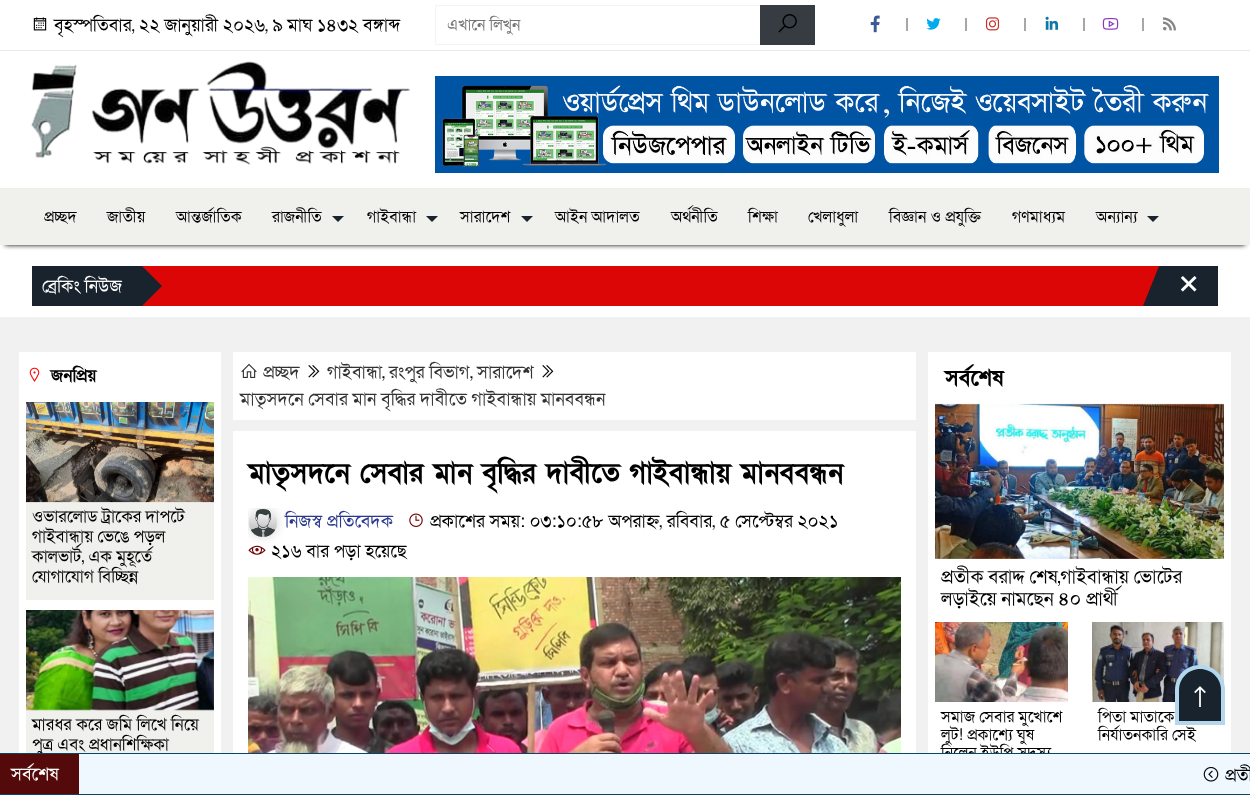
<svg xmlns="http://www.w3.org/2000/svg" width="1250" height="795">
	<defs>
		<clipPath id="clip1"><rect x="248" y="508" width="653" height="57" /></clipPath>
	</defs>
	<rect width="100%" height="100%" fill="#FFFFFF" />
	<rect x="0" y="188" width="1250" height="1" fill="#EEEEEE" />
	<image x="33" y="17" width="14" height="14" href="assets/img1.png" />
	<text x="54" y="31" font-family="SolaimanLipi" font-size="18" fill="#000000">বৃহস্পতিবার, ২২ জানুয়ারী ২০২৬, ৯ মাঘ ১৪৩২ বঙ্গাব্দ</text>
	<rect x="435.5" y="5.5" width="379" height="39" fill="none" stroke="#F4F4F4" />
	<text x="447" y="30" font-family="SolaimanLipi" font-size="16" fill="#757575">এখানে লিখুন</text>
	<rect x="760" y="5" width="55" height="40" fill="#363C42" />
	<image x="778" y="14" width="19" height="19" href="assets/img2.png" />
	<image x="870" y="15" width="10" height="18" href="assets/img3.png" />
	<rect x="906" y="18" width="2" height="13" fill="#A8A6A6" />
	<image x="926" y="18" width="15" height="12" href="assets/img4.png" />
	<rect x="965" y="18" width="2" height="13" fill="#A8A6A6" />
	<image x="985" y="17" width="15" height="14" href="assets/img5.png" />
	<rect x="1024" y="18" width="2" height="13" fill="#A8A6A6" />
	<image x="1045" y="16" width="14" height="14" href="assets/img6.png" />
	<rect x="1083" y="18" width="2" height="13" fill="#A8A6A6" />
	<image x="1102" y="17" width="17" height="13" href="assets/img7.png" />
	<rect x="1142" y="18" width="2" height="13" fill="#A8A6A6" />
	<image x="1163" y="17" width="13" height="14" href="assets/img8.png" />
	<rect x="0" y="50" width="1250" height="1" fill="#EAE8E8" />
	<image x="31" y="61" width="380" height="104" href="assets/img9.png" />
	<image x="435" y="76" width="784" height="97" href="assets/img10.png" />
	<rect x="5" y="199" width="1240" height="46" fill="#000000" filter="blur(2.5px)" />
	<rect x="0" y="189" width="1250" height="56" fill="#F0F0ED" />
	<g font-family="SolaimanLipi" font-size="16" fill="#000000">
		<text x="44" y="222">প্রচ্ছদ</text>
		<text x="107" y="222">জাতীয়</text>
		<text x="176" y="222">আন্তর্জাতিক</text>
		<text x="272" y="222">রাজনীতি</text>
	</g>
	<path d="M332 216H344L338 222Z" fill="#19232D" />
	<text x="367" y="222" font-family="SolaimanLipi" font-size="16" fill="#000000">গাইবান্ধা</text>
	<path d="M426 216H438L432 222Z" fill="#19232D" />
	<text x="460" y="222" font-family="SolaimanLipi" font-size="16" fill="#000000">সারাদেশ</text>
	<path d="M521 216H533L527 222Z" fill="#19232D" />
	<g font-family="SolaimanLipi" font-size="16" fill="#000000">
		<text x="555" y="222">আইন আদালত</text>
		<text x="671" y="222">অর্থনীতি</text>
		<text x="748" y="222">শিক্ষা</text>
		<text x="808" y="222">খেলাধুলা</text>
		<text x="889" y="222">বিজ্ঞান ও প্রযুক্তি</text>
		<text x="1012" y="222">গণমাধ্যম</text>
		<text x="1096" y="222">অন্যান্য</text>
	</g>
	<path d="M1147 216H1159L1153 222Z" fill="#19232D" />
	<rect x="32" y="266" width="110" height="40" fill="#19232D" />
	<text x="42" y="292" font-family="SolaimanLipi" font-size="18" fill="#FFFFFF">ব্রেকিং নিউজ</text>
	<rect x="142" y="266" width="1017" height="40" fill="#DD0606" />
	<path d="M142 306V266L162 286Z" fill="#19232D" />
	<rect x="1159" y="266" width="59" height="40" fill="#19232D" />
	<path d="M1159 306H1143L1159 266Z" fill="#19232D" />
	<text x="1177" y="293" font-family="SolaimanLipi" font-size="40" fill="#FFFFFF">×</text>
	<rect x="0" y="317" width="1250" height="436" fill="#F1F1F2" />
	<rect x="19" y="352" width="202" height="401" fill="#FFFFFF" />
	<image x="29" y="367" width="11" height="15" href="assets/img11.png" />
	<text x="51" y="381" font-family="SolaimanLipi" font-size="17" font-weight="700" fill="#000000">জনপ্রিয়</text>
	<rect x="26" y="502" width="188" height="98" fill="#F0F0ED" />
	<image x="26" y="402" width="188" height="101" href="assets/img12.png" />
	<g font-family="SolaimanLipi" font-size="17" fill="#000000">
		<text x="32" y="522">ওভারলোড ট্রাকের দাপটে</text>
		<text x="32" y="542">গাইবান্ধায় ভেঙে পড়ল</text>
		<text x="32" y="562">কালভার্ট, এক মুহূর্তে</text>
		<text x="32" y="582">যোগাযোগ বিচ্ছিন্ন</text>
	</g>
	<rect x="26" y="610" width="188" height="143" fill="#F0F0ED" />
	<image x="26" y="610" width="188" height="101" href="assets/img13.png" />
	<g font-family="SolaimanLipi" font-size="17" fill="#000000">
		<text x="32" y="730">মারধর করে জমি লিখে নিয়ে</text>
		<text x="32" y="750">পুত্র এবং প্রধানশিক্ষিকা</text>
	</g>
	<rect x="233" y="352" width="683" height="68" fill="#FFFFFF" />
	<image x="241" y="363" width="16" height="15" href="assets/img14.png" />
	<text x="263" y="378" font-family="SolaimanLipi" font-size="18" fill="#333333">প্রচ্ছদ</text>
	<image x="308" y="365" width="12" height="13" href="assets/img15.png" />
	<g font-family="SolaimanLipi" font-size="18" fill="#333333">
		<text x="327" y="378">গাইবান্ধা</text>
		<text x="389" y="378">রংপুর বিভাগ</text>
		<text x="477" y="378">সারাদেশ</text>
	</g>
	<image x="542" y="365" width="12" height="13" href="assets/img15.png" />
	<g font-family="SolaimanLipi" font-size="18" fill="#000000">
		<text x="382" y="378">,</text>
		<text x="470" y="378">,</text>
	</g>
	<text x="240" y="405" font-family="SolaimanLipi" font-size="18" fill="#333333">মাতৃসদনে সেবার মান বৃদ্ধির দাবীতে গাইবান্ধায় মানববন্ধন</text>
	<rect x="233" y="431" width="683" height="322" fill="#FFFFFF" />
	<text x="248" y="482" font-family="SolaimanLipi" font-size="28" font-weight="700" fill="#000000">মাতৃসদনে সেবার মান বৃদ্ধির দাবীতে গাইবান্ধায় মানববন্ধন</text>
	<g clip-path="url(#clip1)">
		<rect x="248" y="508" width="30" height="30" rx="15" fill="#DDDDDD" filter="blur(5px)" />
	</g>
	<image x="249" y="509" width="28" height="28" href="assets/img16.png" />
	<text x="285" y="527" font-family="SolaimanLipi" font-size="18" fill="#2A388F">নিজস্ব প্রতিবেদক</text>
	<image x="409" y="513" width="14" height="14" href="assets/img17.png" />
	<text x="430" y="527" font-family="SolaimanLipi" font-size="18" fill="#000000">প্রকাশের সময়: ০৩:১০:৫৮ অপরাহ্ন, রবিবার, ৫ সেপ্টেম্বর ২০২১</text>
	<image x="248" y="545" width="18" height="10" href="assets/img18.png" />
	<text x="271" y="557" font-family="SolaimanLipi" font-size="18" fill="#000000">২১৬ বার পড়া হয়েছে</text>
	<image x="248" y="577" width="653" height="176" href="assets/img19.png" />
	<rect x="928" y="352" width="303" height="401" fill="#FFFFFF" />
	<text x="945" y="385" font-family="SolaimanLipi" font-size="22" font-weight="700" fill="#000000">সর্বশেষ</text>
	<image x="935" y="403" width="289" height="156" href="assets/img20.png" />
	<g font-family="SolaimanLipi" font-size="19" fill="#000000">
		<text x="941" y="583">প্রতীক বরাদ্দ শেষ,গাইবান্ধায় ভোটের</text>
		<text x="941" y="605">লড়াইয়ে নামছেন ৪০ প্রার্থী</text>
	</g>
	<image x="935" y="622" width="133" height="80" href="assets/img21.png" />
	<g font-family="SolaimanLipi" font-size="16" fill="#000000">
		<text x="941" y="722">সমাজ সেবার মুখোশে</text>
		<text x="941" y="740">লুট! প্রকাশ্যে ঘুষ</text>
		<text x="941" y="758">নিলেন ইউপি সদস্য</text>
	</g>
	<image x="1092" y="622" width="132" height="80" href="assets/img22.png" />
	<g font-family="SolaimanLipi" font-size="16" fill="#000000">
		<text x="1098" y="722">পিতা মাতাকে</text>
		<text x="1098" y="740">নির্যাতনকারি সেই</text>
	</g>
	<path d="M1200 665C1214 665 1225 676 1225 690V725H1175V690C1175 676 1186 665 1200 665Z" fill="#B3D7EC" />
	<path d="M1200 669C1211.5 669 1221 678.5 1221 690V721H1179V690C1179 678.5 1188.5 669 1200 669Z" fill="#19232D" />
	<image x="1194" y="686" width="12" height="21" href="assets/img23.png" />
	<rect x="79" y="754" width="1171" height="40" fill="#F0F8FF" />
	<rect x="0" y="753" width="1250" height="1" fill="#0A4466" />
	<rect x="0" y="794" width="1250" height="1" fill="#0A4466" />
	<rect x="0" y="754" width="79" height="40" fill="#540A0A" />
	<text x="11" y="780" font-family="SolaimanLipi" font-size="18" fill="#FFFFFF">সর্বশেষ</text>
	<image x="1203" y="767" width="16" height="15" href="assets/img24.png" />
	<text x="1225" y="781" font-family="SolaimanLipi" font-size="18" fill="#000000">প্রতী</text>
</svg>
